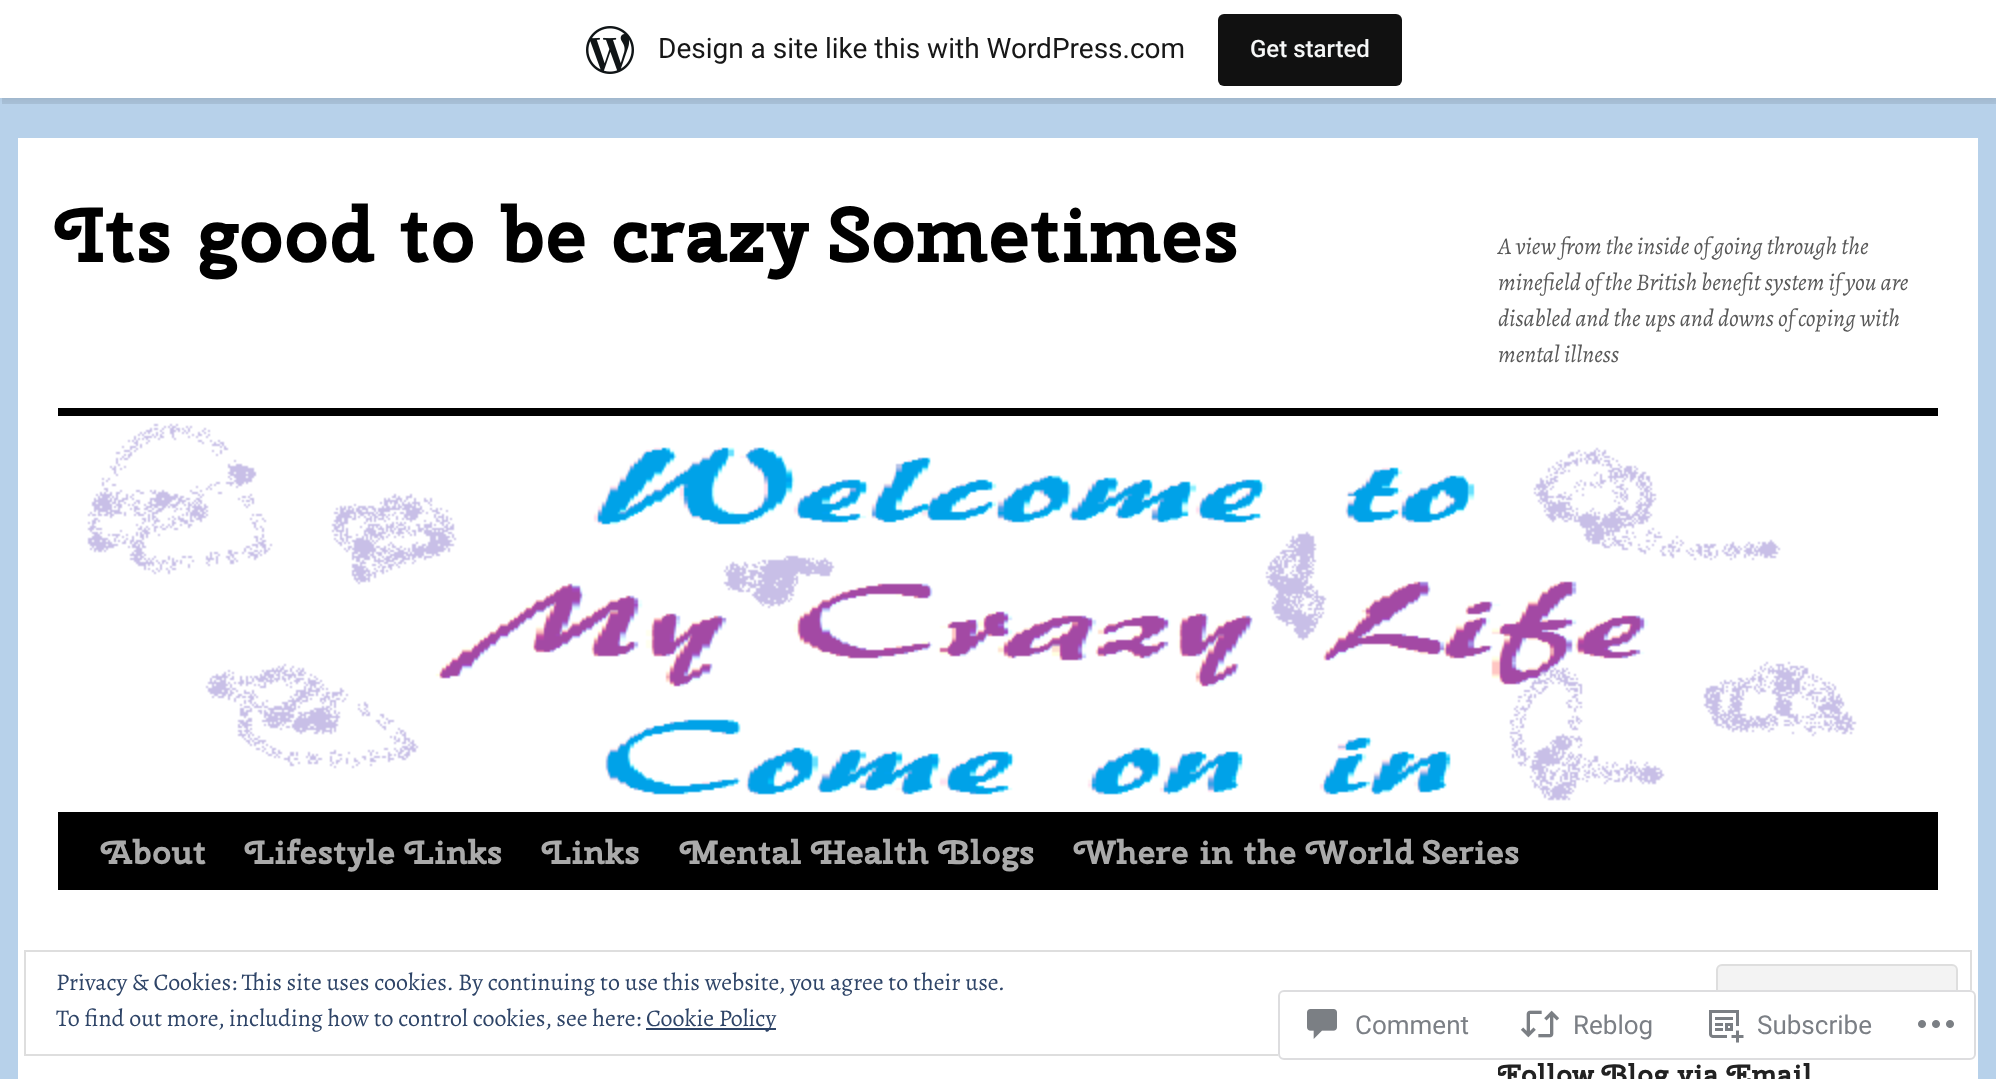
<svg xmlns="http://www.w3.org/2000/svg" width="1996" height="1079">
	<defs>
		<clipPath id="clip1"><rect x="1498" y="970" width="440" height="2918" /></clipPath>
	</defs>
	<rect width="100%" height="100%" fill="#B7D1EA" />
	<rect x="0" y="2" width="1996" height="98" fill="#000000" fill-opacity="0.05" filter="blur(2px)" />
	<path d="M2 98V104H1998V6H1996V98Z" fill="#000000" fill-opacity="0.08" />
	<rect x="0" y="0" width="1996" height="98" fill="#FFFFFF" />
	<image x="586" y="26" width="48" height="48" href="assets/img1.png" />
	<text x="658" y="58" font-family="Roboto" font-size="28" fill="#171717">Design a site like this with WordPress.com</text>
	<rect x="1218" y="14" width="184" height="72" rx="6" fill="#111111" />
	<text x="1250" y="57" font-family="Roboto" font-size="24" font-weight="500" fill="#F6F7F7">Get started</text>
	<rect x="18" y="138" width="1960" height="941" fill="#FFFFFF" />
	<text x="58" y="262" font-family="Cherry Swash" font-size="78" font-weight="700" fill="#000000">Its good to be crazy Sometimes</text>
	<g font-family="Alegreya" font-size="24" font-style="italic" fill="#595959">
		<text x="1498" y="254">A view from the inside of going through the</text>
		<text x="1498" y="290">minefield of the British benefit system if you are</text>
		<text x="1498" y="326">disabled and the ups and downs of coping with</text>
		<text x="1498" y="362">mental illness</text>
	</g>
	<rect x="58" y="408" width="1880" height="8" fill="#000000" />
	<rect x="58" y="812" width="1880" height="78" fill="#000000" />
	<image x="87" y="423" width="1770" height="378" href="assets/img2.png" />
	<g font-family="Cherry Swash" font-size="33.75" font-weight="700" fill="#AAAAAA">
		<text x="102" y="864">About</text>
		<text x="246" y="864">Lifestyle Links</text>
		<text x="543" y="864">Links</text>
		<text x="681" y="864">Mental Health Blogs</text>
		<text x="1075" y="864">Where in the World Series</text>
	</g>
	<g clip-path="url(#clip1)">
		<text x="1498" y="1084" font-family="Cherry Swash" font-size="28" font-weight="700" fill="#222222">Follow Blog via Email</text>
	</g>
	<rect x="25" y="951" width="1946" height="104" fill="none" stroke="#DEDEDE" stroke-width="2" />
	<text x="56" y="990" font-family="Alegreya" font-size="24" fill="#2E4467">Privacy &amp; Cookies: This site uses cookies. By continuing to use this website, you agree to their use.</text>
	<rect x="1717" y="965" width="240" height="76" rx="5" fill="#F3F3F3" stroke="#DEDEDE" stroke-width="2" />
	<text x="56" y="1026" font-family="Alegreya" font-size="24" fill="#2E4467">To find out more, including how to control cookies, see here:</text>
	<rect x="646" y="1028" width="130" height="2" fill="#2E4467" />
	<text x="646" y="1026" font-family="Alegreya" font-size="24" fill="#2E4467">Cookie Policy</text>
	<rect x="1278" y="990" width="698" height="70" rx="6" fill="#FFFFFF" fill-opacity="0.98" />
	<rect x="1279" y="991" width="696" height="68" rx="5" fill="none" stroke="#DCDCDE" stroke-opacity="0.98" stroke-width="2" />
	<image x="1307" y="1009" width="30" height="30" href="assets/img3.png" />
	<text x="1355" y="1034" font-family="Roboto" font-size="26" fill="#7B7F85">Comment</text>
	<image x="1520" y="1010" width="40" height="28" href="assets/img4.png" />
	<text x="1573" y="1034" font-family="Roboto" font-size="26" fill="#7B7F85">Reblog</text>
	<image x="1709" y="1010" width="35" height="33" href="assets/img5.png" />
	<text x="1757" y="1034" font-family="Roboto" font-size="26" fill="#7B7F85">Subscribe</text>
	<image x="1918" y="1020" width="36" height="8" href="assets/img6.png" />
</svg>
